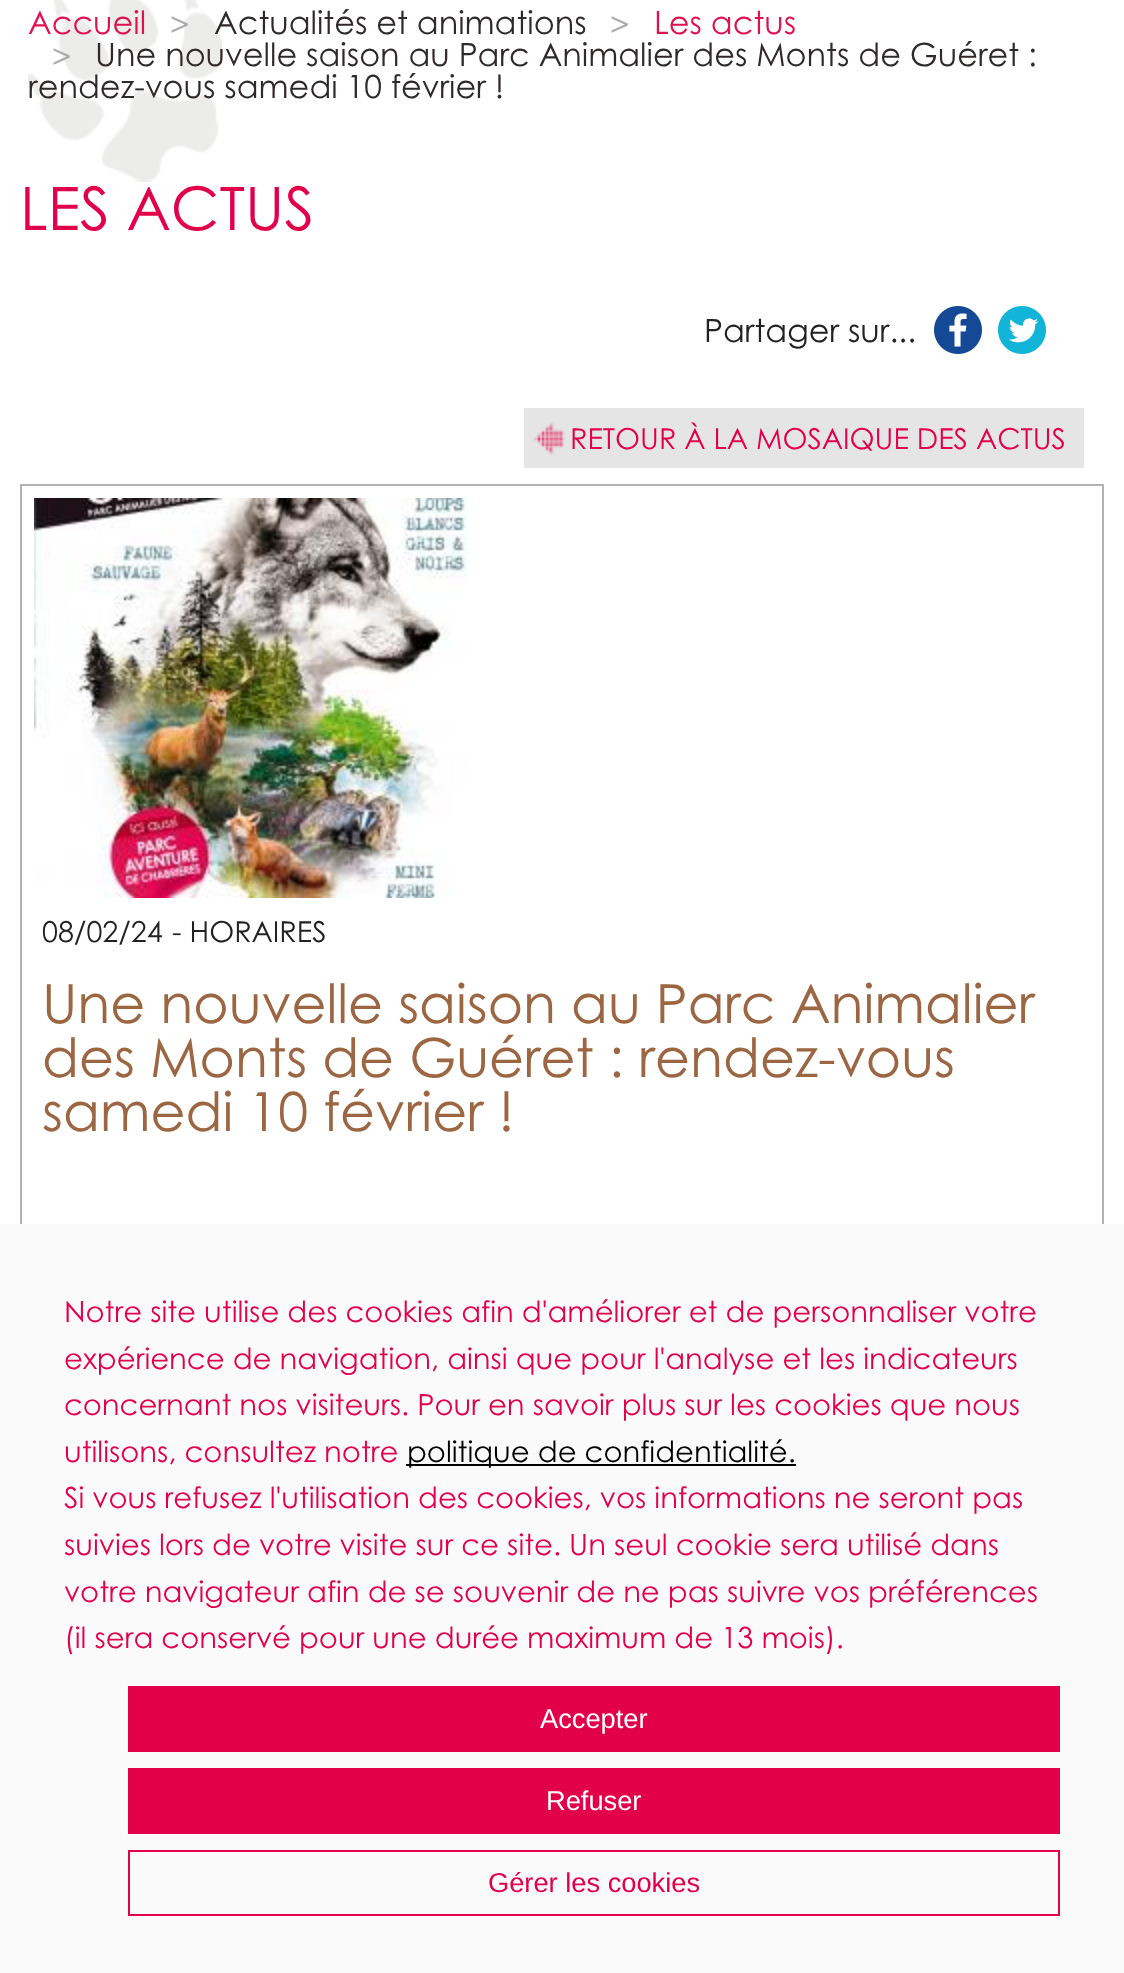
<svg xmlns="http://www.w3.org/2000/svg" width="1124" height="1973">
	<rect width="100%" height="100%" fill="#FFFFFF" />
	<image x="28" y="0" width="194" height="182" href="assets/img1.png" />
	<text x="28" y="34" font-family="Century Gothic" font-size="32" fill="#E01151">Accueil</text>
	<text x="170" y="36" font-family="Century Gothic" font-size="32" fill="#AAAAAA">&gt;</text>
	<text x="214" y="34" font-family="Century Gothic" font-size="32" fill="#30292A">Actualités et animations</text>
	<text x="610" y="36" font-family="Century Gothic" font-size="32" fill="#AAAAAA">&gt;</text>
	<text x="654" y="34" font-family="Century Gothic" font-size="32" fill="#E01151">Les actus</text>
	<text x="52" y="68" font-family="Century Gothic" font-size="32" fill="#AAAAAA">&gt;</text>
	<g font-family="Century Gothic" font-size="32" fill="#30292A">
		<text x="95" y="66">Une nouvelle saison au Parc Animalier des Monts de Guéret :</text>
		<text x="28" y="98">rendez-vous samedi 10 février !</text>
	</g>
	<text x="20" y="230" font-family="Century Gothic" font-size="60" fill="#E3004A">LES ACTUS</text>
	<text x="704" y="342" font-family="Century Gothic" font-size="32" fill="#222222">Partager sur...</text>
	<image x="934" y="306" width="48" height="48" href="assets/img2.png" />
	<image x="998" y="306" width="48" height="48" href="assets/img3.png" />
	<rect x="524" y="408" width="560" height="60" fill="#E5E5E5" />
	<image x="533" y="422" width="32" height="33" href="assets/img4.png" />
	<text x="570" y="449" font-family="Century Gothic" font-size="28.75" fill="#E3004A">RETOUR À LA MOSAIQUE DES ACTUS</text>
	<rect x="21" y="485" width="1082" height="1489" fill="none" stroke="#B3B3B3" stroke-width="2" />
	<image x="34" y="498" width="435" height="400" href="assets/img5.png" />
	<g font-family="Century Gothic" font-size="28.75" fill="#222222">
		<text x="42" y="942">08/02/24</text>
		<text x="172" y="942">- HORAIRES</text>
	</g>
	<g font-family="Century Gothic" font-size="54" fill="#9C6642">
		<text x="42" y="1023">Une nouvelle saison au Parc Animalier</text>
		<text x="42" y="1077">des Monts de Guéret : rendez-vous</text>
		<text x="42" y="1131">samedi 10 février !</text>
	</g>
	<rect x="0" y="1224" width="1124" height="749" fill="#FAFAFA" />
	<g font-family="Century Gothic" font-size="29.1" fill="#E3004A">
		<text x="64" y="1322">Notre site utilise des cookies afin d'améliorer et de personnaliser votre</text>
		<text x="64" y="1369">expérience de navigation, ainsi que pour l'analyse et les indicateurs</text>
		<text x="64" y="1415">concernant nos visiteurs. Pour en savoir plus sur les cookies que nous</text>
		<text x="64" y="1462">utilisons, consultez notre</text>
	</g>
	<rect x="406" y="1464" width="390" height="2" fill="#000000" />
	<text x="407" y="1462" font-family="Century Gothic" font-size="29.1" fill="#000000">politique de confidentialité.</text>
	<g font-family="Century Gothic" font-size="29.1" fill="#E3004A">
		<text x="64" y="1508">Si vous refusez l'utilisation des cookies, vos informations ne seront pas</text>
		<text x="64" y="1555">suivies lors de votre visite sur ce site. Un seul cookie sera utilisé dans</text>
		<text x="64" y="1602">votre navigateur afin de se souvenir de ne pas suivre vos préférences</text>
		<text x="64" y="1648">(il sera conservé pour une durée maximum de 13 mois).</text>
	</g>
	<rect x="128" y="1686" width="932" height="66" fill="#E3004A" />
	<text x="540" y="1728" font-family="Liberation Sans" font-size="27.25" fill="#FFFFFF">Accepter</text>
	<rect x="128" y="1768" width="932" height="66" fill="#E3004A" />
	<text x="546" y="1810" font-family="Liberation Sans" font-size="27.25" fill="#FFFFFF">Refuser</text>
	<rect x="129" y="1851" width="930" height="64" fill="none" stroke="#E3004A" stroke-width="2" />
	<text x="488" y="1892" font-family="Liberation Sans" font-size="27.25" fill="#E3004A">Gérer les cookies</text>
</svg>
